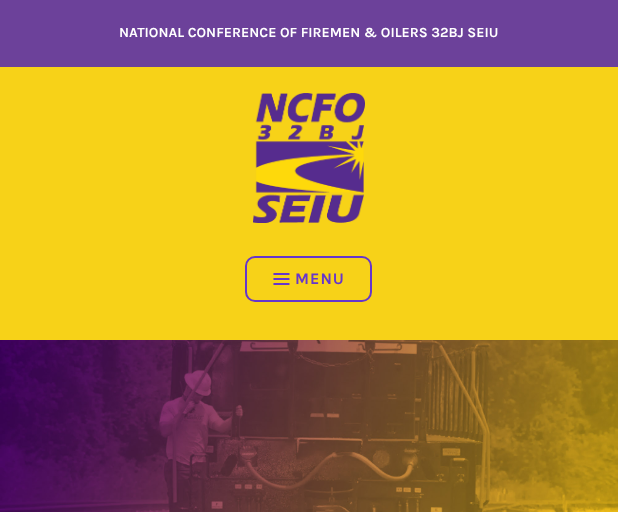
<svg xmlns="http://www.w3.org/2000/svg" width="618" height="512">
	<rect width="100%" height="100%" fill="#6C419A" />
	<text x="119" y="37" font-family="Karla" font-size="14" font-weight="700" fill="#FFFFFF">NATIONAL CONFERENCE OF FIREMEN &amp; OILERS 32BJ SEIU</text>
	<rect x="0" y="67" width="618" height="273" fill="#F7D218" />
	<image x="253" y="93" width="112" height="130" href="assets/img1.png" />
	<rect x="246" y="257" width="125" height="44" rx="9" fill="none" stroke="#6636CC" stroke-width="2" />
	<image x="273" y="273" width="17" height="12" href="assets/img2.png" />
	<text x="295" y="284" font-family="Karla" font-size="16" font-weight="700" letter-spacing="1" fill="#6636CC">MENU</text>
	<image x="0" y="340" width="618" height="172" href="assets/img3.png" />
</svg>
